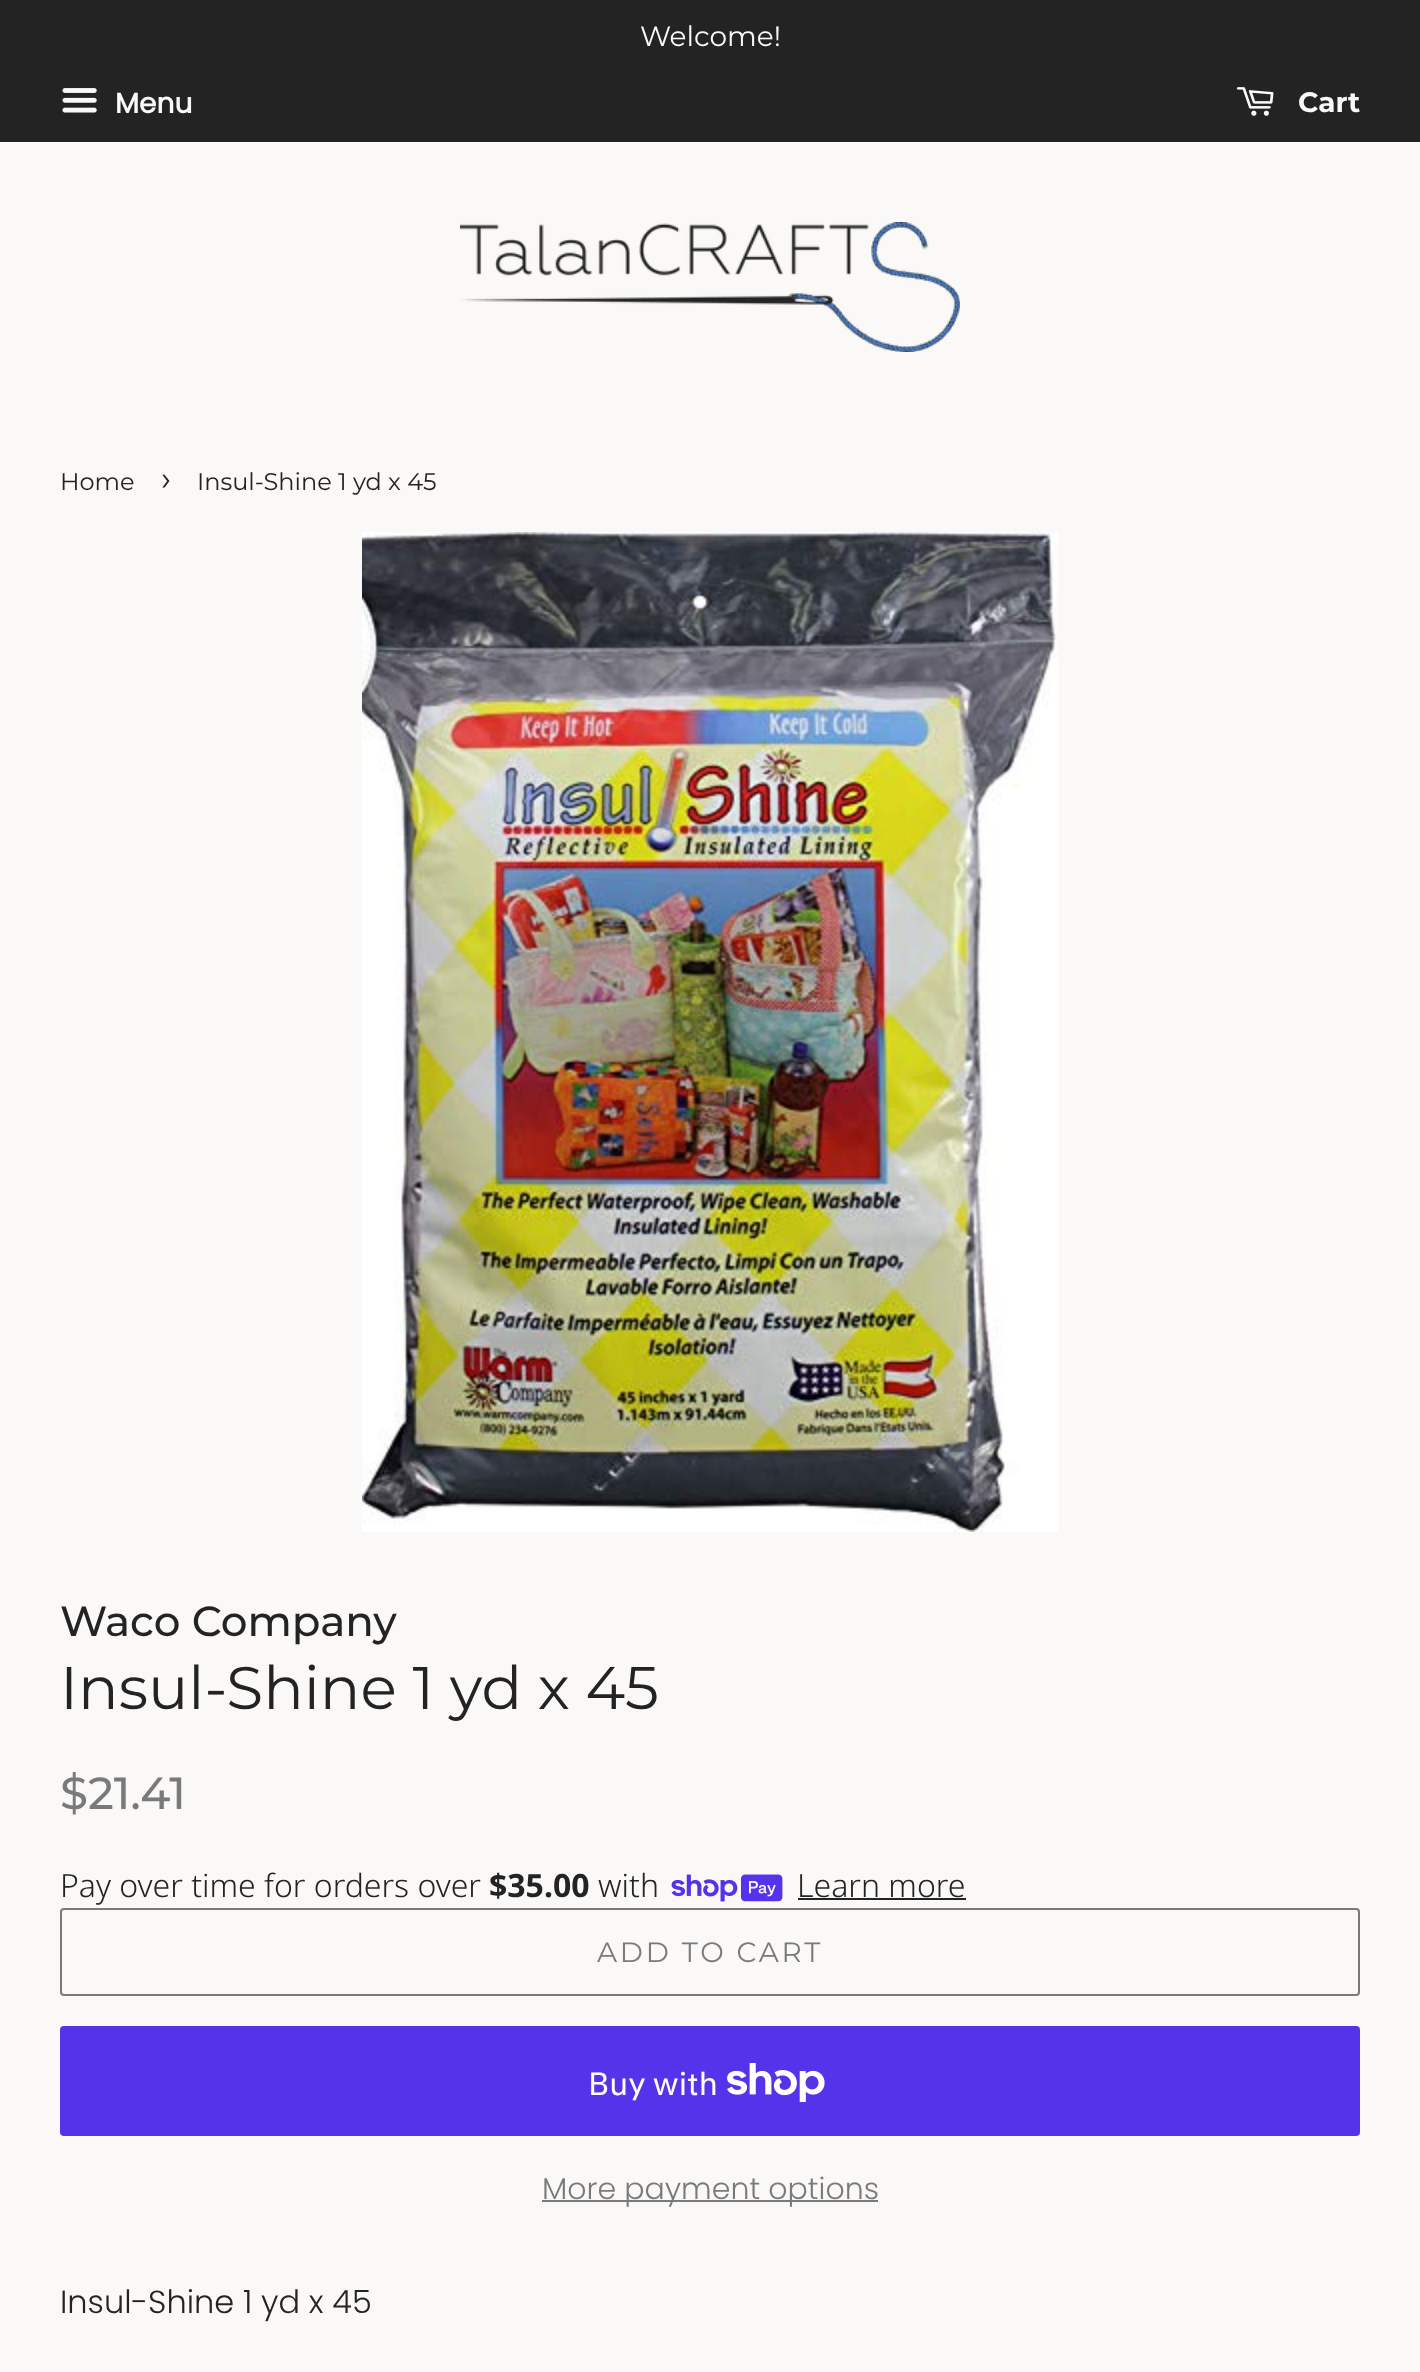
<svg xmlns="http://www.w3.org/2000/svg" width="1420" height="2372">
	<rect width="100%" height="100%" fill="#FAF9F7" />
	<rect x="0" y="0" width="1420" height="142" fill="#232323" />
	<text x="640" y="46" font-family="Montserrat" font-size="28" fill="#FAF9F7">Welcome!</text>
	<image x="62" y="88" width="35" height="25" href="assets/img1.png" />
	<text x="115" y="113" font-family="Poppins" font-size="28" font-weight="700" fill="#FAF9F7">Menu</text>
	<image x="1236" y="87" width="38" height="29" href="assets/img2.png" />
	<text x="1298" y="112" font-family="Montserrat" font-size="28" font-weight="700" fill="#FAF9F7">Cart</text>
	<image x="460" y="222" width="500" height="130" href="assets/img3.png" />
	<text x="60" y="490" font-family="Montserrat" font-size="24" fill="#232323">Home</text>
	<text x="161" y="490" font-family="Montserrat" font-size="34" fill="#232323">›</text>
	<text x="197" y="490" font-family="Montserrat" font-size="24" fill="#232323">Insul-Shine 1 yd x 45</text>
	<image x="362" y="532" width="696" height="1000" href="assets/img4.png" />
	<text x="60" y="1636" font-family="Montserrat" font-size="42" font-weight="500" fill="#232323">Waco Company</text>
	<text x="60" y="1709" font-family="Montserrat" font-size="60" fill="#232323">Insul-Shine 1 yd x 45</text>
	<text x="60" y="1809" font-family="Montserrat" font-size="45" font-weight="500" fill="#7A7A7B">$21.41</text>
	<text x="60" y="1897" font-family="Noto Sans" font-size="32" font-weight="300" fill="#232323">Pay over time for orders over</text>
	<text x="489" y="1897" font-family="Noto Sans" font-size="32" font-weight="700" fill="#232323">$35.00</text>
	<text x="598" y="1897" font-family="Noto Sans" font-size="32" font-weight="300" fill="#232323">with</text>
	<image x="671" y="1874" width="112" height="28" href="assets/img5.png" />
	<text x="797" y="1897" font-family="Noto Sans" font-size="32" font-weight="300" fill="#232323">Learn more</text>
	<rect x="798" y="1898" width="168" height="2" fill="#232323" />
	<rect x="61" y="1909" width="1298" height="86" rx="3" fill="none" stroke="#7A7A7B" stroke-width="2" />
	<text x="597" y="1962" font-family="Montserrat" font-size="28" letter-spacing="2.75" fill="#7A7A7B">ADD TO CART</text>
	<rect x="60" y="2026" width="1300" height="110" rx="4" fill="#5433EB" />
	<text x="588" y="2095" font-family="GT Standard" font-size="32" fill="#FFFFFF">Buy with</text>
	<image x="727" y="2063" width="98" height="39" href="assets/img6.png" />
	<rect x="542" y="2200" width="336" height="2" fill="#7A7A7B" />
	<text x="542" y="2199" font-family="Poppins" font-size="30" font-weight="300" fill="#7A7A7B">More payment options</text>
	<text x="60" y="2313" font-family="Poppins" font-size="32" font-weight="300" fill="#232323">Insul-Shine 1 yd x 45</text>
</svg>
